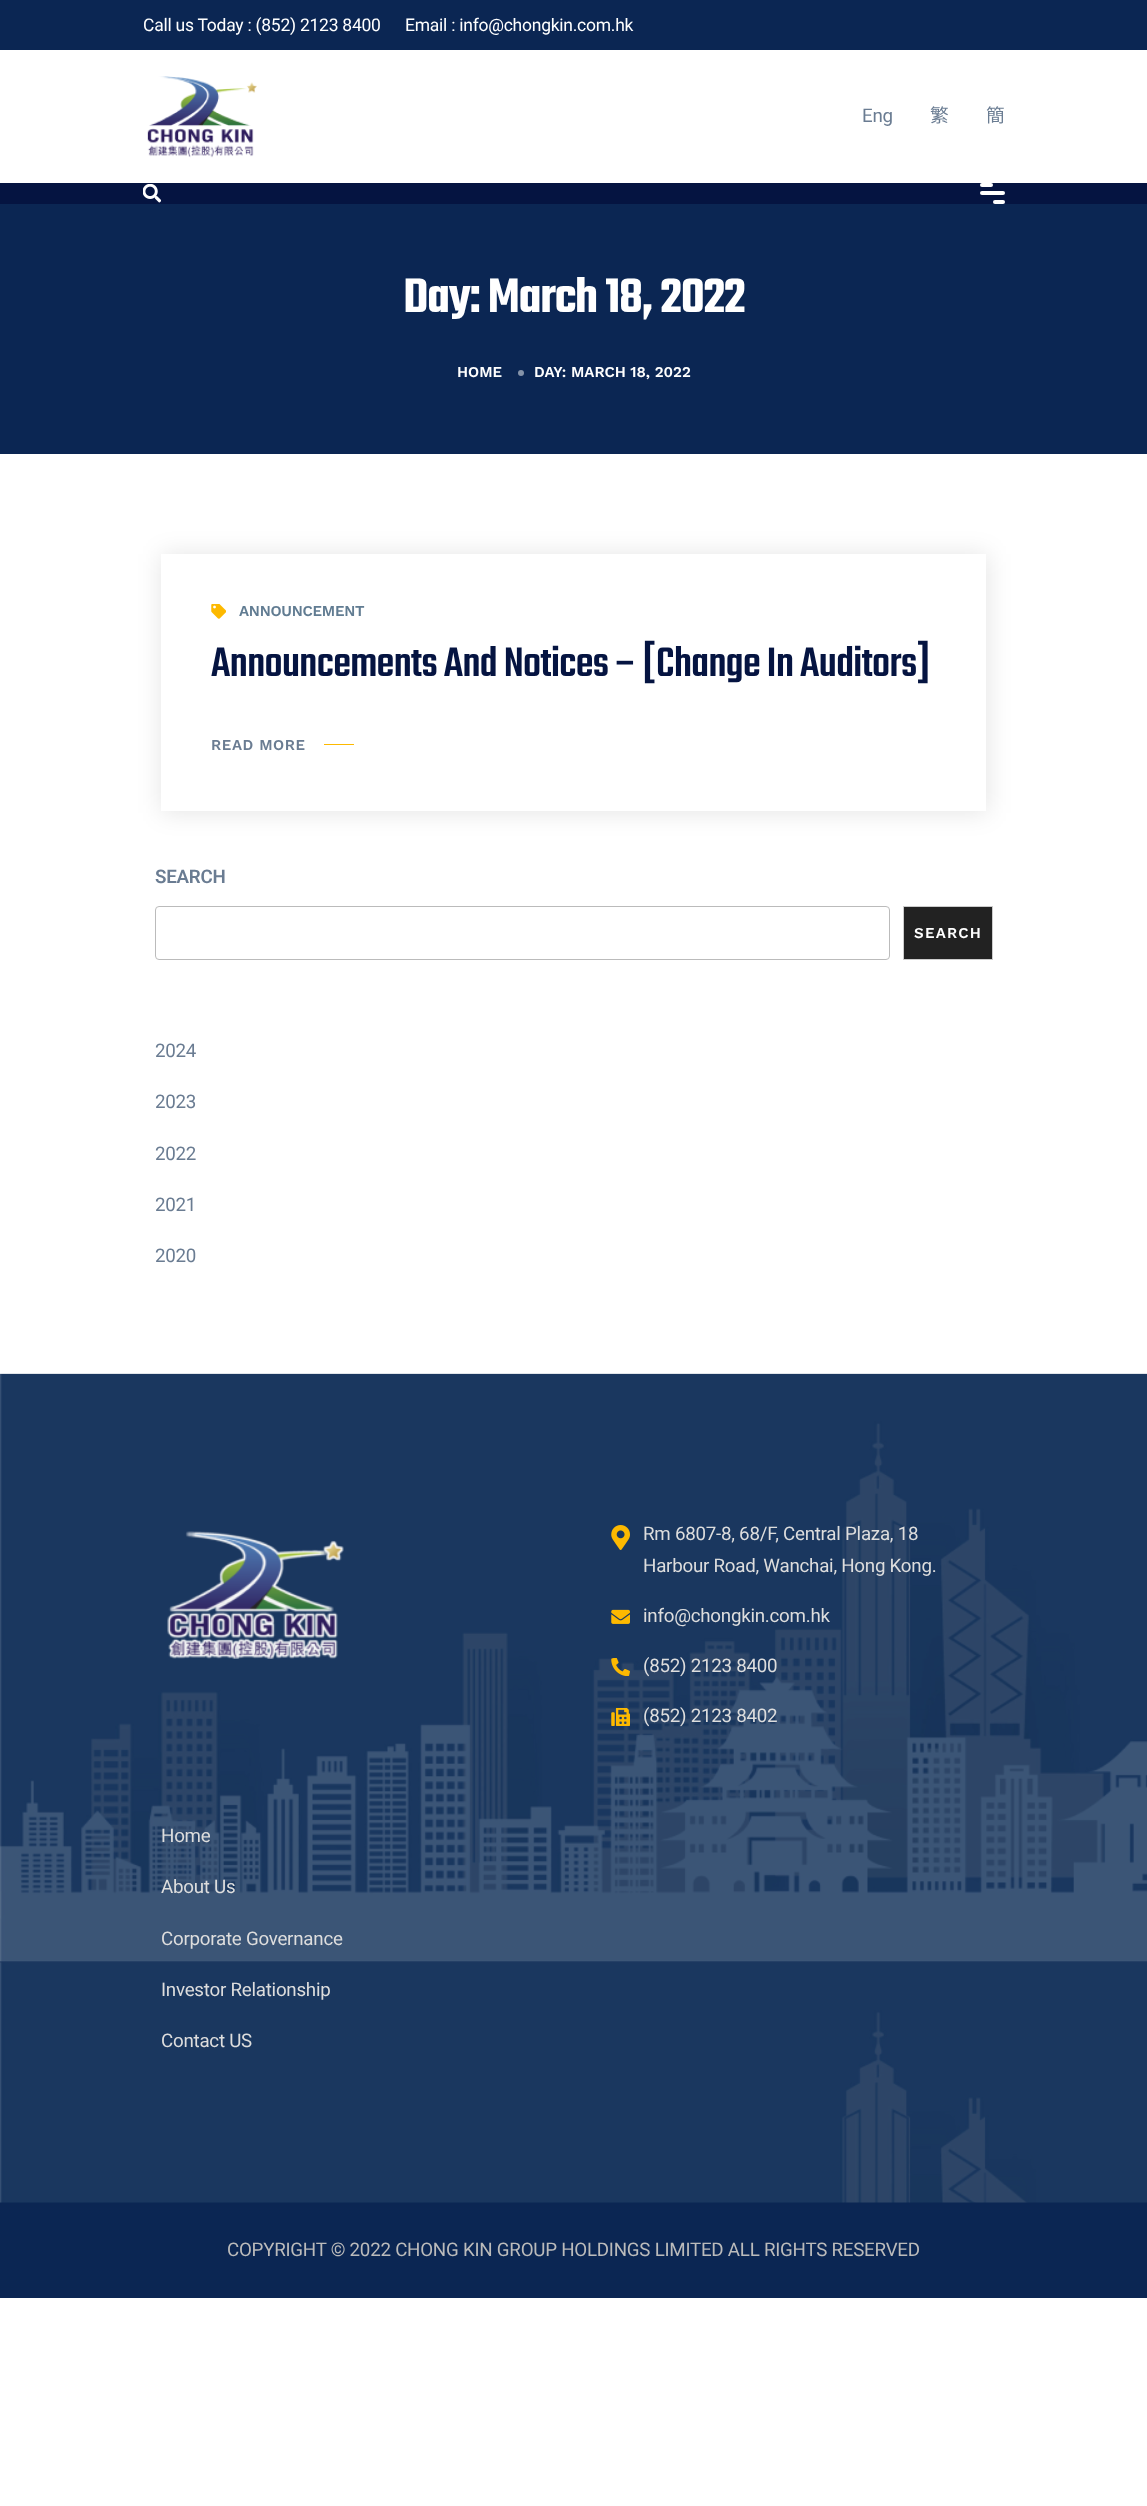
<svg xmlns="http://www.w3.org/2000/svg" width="1147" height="2506">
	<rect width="100%" height="100%" fill="#FFFFFF" />
	<rect x="0" y="0" width="1147" height="50" fill="#0B2653" />
	<g font-family="Roboto" font-size="17.5" letter-spacing="-0.25" fill="#FFFFFF">
		<text x="143" y="31">Call us Today : (852) 2123 8400</text>
		<text x="405" y="31">Email : info@chongkin.com.hk</text>
	</g>
	<image x="147" y="76" width="110" height="82" href="assets/img1.png" />
	<text x="862" y="122" font-family="Roboto" font-size="18.75" letter-spacing="-0.25" fill="#6A7C92">Eng</text>
	<text x="930" y="122" font-family="Noto Sans CJK HK" font-size="18.75" letter-spacing="-0.25" fill="#6A7C92">繁</text>
	<text x="986" y="122" font-family="Noto Sans CJK SC" font-size="18.75" letter-spacing="-0.25" fill="#6A7C92">簡</text>
	<rect x="0" y="183" width="1147" height="21" fill="#051441" />
	<image x="143" y="184" width="18" height="19" href="assets/img2.png" />
	<rect x="980" y="183" width="13" height="4" rx="2" fill="#FFFFFF" />
	<rect x="980" y="191" width="25" height="4" rx="2" fill="#FFFFFF" />
	<rect x="993" y="200" width="12" height="4" rx="2" fill="#FFFFFF" />
	<rect x="0" y="204" width="1147" height="250" fill="#0B2653" />
	<text x="403" y="312" font-family="Teko" font-size="52.5" font-weight="600" letter-spacing="-1.25" fill="#FFFFFF">Day: March 18, 2022</text>
	<text x="457" y="377" font-family="Work Sans" font-size="15" font-weight="600" fill="#FFFFFF">HOME</text>
	<circle cx="521" cy="373" r="3" fill="#8593A9" />
	<text x="534" y="377" font-family="Work Sans" font-size="15" font-weight="600" fill="#FFFFFF">DAY: MARCH 18, 2022</text>
	<rect x="161" y="554" width="827" height="259" fill="#000000" fill-opacity="0.1" filter="blur(12.5px)" />
	<rect x="161" y="554" width="825" height="257" fill="#FFFFFF" />
	<image x="211" y="604" width="15" height="15" href="assets/img3.png" />
	<text x="239" y="616" font-family="Work Sans" font-size="15" font-weight="600" letter-spacing="-0.25" fill="#617C92">ANNOUNCEMENT</text>
	<text x="211" y="676" font-family="Teko" font-size="45" font-weight="500" letter-spacing="-0.6" fill="#051441">Announcements And Notices – [Change In Auditors]</text>
	<text x="211" y="750" font-family="Work Sans" font-size="15" font-weight="600" letter-spacing="0.6" fill="#6A7C92">READ MORE</text>
	<rect x="324" y="744" width="30" height="1" fill="#FDB900" />
	<text x="155" y="883" font-family="Roboto" font-size="18.75" font-weight="600" letter-spacing="-0.25" fill="#6A7C92">SEARCH</text>
	<rect x="155.5" y="906.5" width="734" height="53" rx="3.5" fill="none" stroke="#BBBBBB" />
	<rect x="903.5" y="906.5" width="89" height="53" fill="#222222" stroke="#CCCCCC" />
	<text x="914" y="938" font-family="Work Sans" font-size="15" font-weight="600" letter-spacing="1.25" fill="#FFFFFF">SEARCH</text>
	<g font-family="Roboto" font-size="18.75" letter-spacing="-0.25" fill="#6A7C92">
		<text x="155" y="1057">2024</text>
		<text x="155" y="1108">2023</text>
		<text x="155" y="1160">2022</text>
		<text x="155" y="1211">2021</text>
		<text x="155" y="1262">2020</text>
	</g>
	<rect x="0" y="1961" width="1147" height="337" fill="#0B2653" />
	<image x="0" y="1373" width="1147" height="830" href="assets/img4.png" />
	<image x="167" y="1531" width="177" height="128" href="assets/img5.png" />
	<image x="611" y="1525" width="19" height="25" href="assets/img6.png" />
	<g font-family="Roboto" font-size="18.75" letter-spacing="-0.25" fill="#DDDDDD">
		<text x="643" y="1540">Rm 6807-8, 68/F, Central Plaza, 18</text>
		<text x="643" y="1572">Harbour Road, Wanchai, Hong Kong.</text>
	</g>
	<image x="611" y="1609" width="19" height="15" href="assets/img7.png" />
	<text x="643" y="1622" font-family="Roboto" font-size="18.75" letter-spacing="-0.25" fill="#DDDDDD">info@chongkin.com.hk</text>
	<image x="611" y="1658" width="19" height="18" href="assets/img8.png" />
	<text x="643" y="1672" font-family="Roboto" font-size="18.75" letter-spacing="-0.25" fill="#DDDDDD">(852) 2123 8400</text>
	<image x="611" y="1708" width="19" height="18" href="assets/img9.png" />
	<g font-family="Roboto" font-size="18.75" letter-spacing="-0.25" fill="#DDDDDD">
		<text x="643" y="1722">(852) 2123 8402</text>
		<text x="161" y="1842">Home</text>
		<text x="161" y="1893">About Us</text>
		<text x="161" y="1945">Corporate Governance</text>
		<text x="161" y="1996">Investor Relationship</text>
		<text x="161" y="2047">Contact US</text>
	</g>
	<text x="227" y="2256" font-family="Roboto" font-size="18.75" letter-spacing="-0.25" fill="#BBBBBB">COPYRIGHT © 2022 CHONG KIN GROUP HOLDINGS LIMITED ALL RIGHTS RESERVED</text>
</svg>
